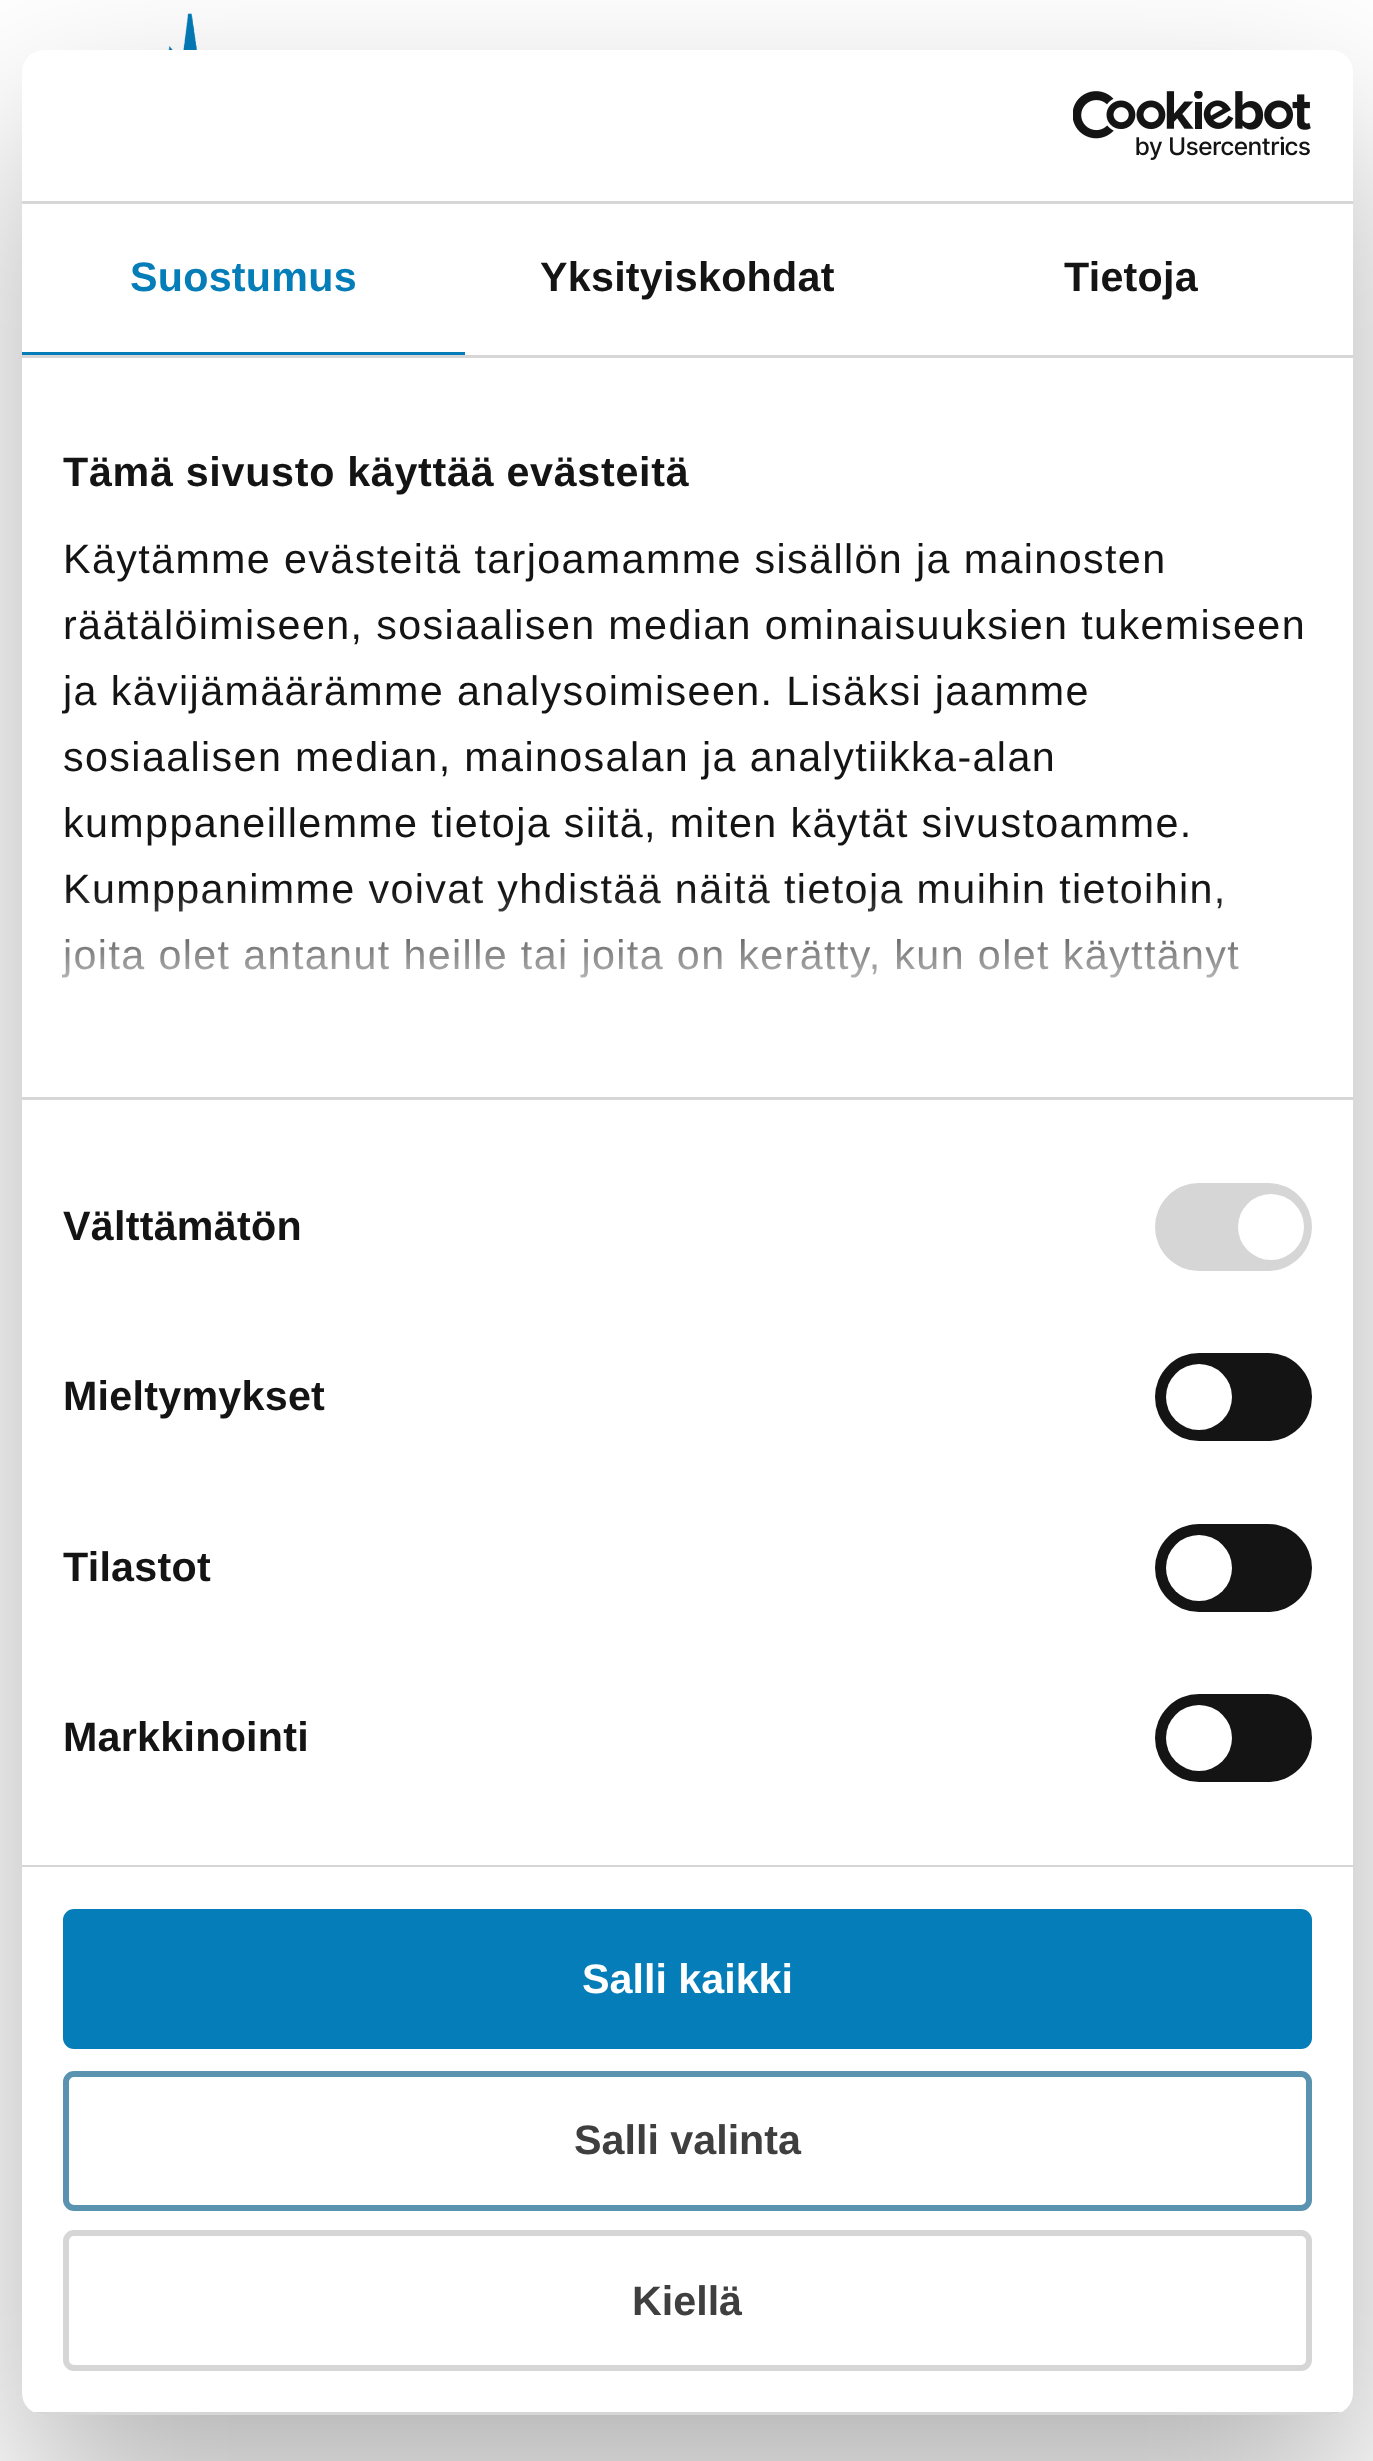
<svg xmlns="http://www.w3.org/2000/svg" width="1373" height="2461">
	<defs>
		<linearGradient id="g1" gradientUnits="userSpaceOnUse" x1="670" y1="1097" x2="670" y2="890"><stop offset="0" stop-color="#FFFFFF" /><stop offset="0.5" stop-color="#FFFFFF" stop-opacity="0.8" /><stop offset="1" stop-color="#FFFFFF" stop-opacity="0" /></linearGradient>
		<clipPath id="clip1"><rect x="22" y="50" width="1331" height="2365" rx="22" /></clipPath>
	</defs>
	<rect width="100%" height="100%" fill="#FFFFFF" />
	<image x="168" y="13" width="29" height="37" href="assets/img1.png" />
	<rect x="22" y="138" width="1331" height="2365" rx="22" fill="#000000" fill-opacity="0.3" filter="blur(93.5px)" />
	<rect x="22" y="50" width="1331" height="2365" rx="22" fill="#FFFFFF" />
	<rect x="22" y="201" width="1331" height="3" fill="#D6D6D6" />
	<image x="1073" y="91" width="238" height="69" href="assets/img2.png" />
	<rect x="22" y="355" width="1331" height="3" fill="#D6D6D6" />
	<rect x="22" y="352" width="443" height="3" fill="#047DB8" />
	<text x="130" y="291" font-family="Liberation Sans" font-size="41.25" font-weight="700" letter-spacing="0.25" fill="#047DB8">Suostumus</text>
	<g font-family="Liberation Sans" font-size="41.25" font-weight="700" letter-spacing="0.25" fill="#141414">
		<text x="540" y="291">Yksityiskohdat</text>
		<text x="1064" y="291">Tietoja</text>
	</g>
	<rect x="22" y="1097" width="1331" height="3" fill="#D6D6D6" />
	<text x="63" y="486" font-family="Liberation Sans" font-size="41.25" font-weight="700" letter-spacing="0.7" fill="#141414">Tämä sivusto käyttää evästeitä</text>
	<g font-family="Liberation Sans" font-size="41.25" letter-spacing="1.38" fill="#141414">
		<text x="63" y="573">Käytämme evästeitä tarjoamamme sisällön ja mainosten</text>
		<text x="63" y="639">räätälöimiseen, sosiaalisen median ominaisuuksien tukemiseen</text>
		<text x="63" y="705">ja kävijämäärämme analysoimiseen. Lisäksi jaamme</text>
		<text x="63" y="771">sosiaalisen median, mainosalan ja analytiikka-alan</text>
		<text x="63" y="837">kumppaneillemme tietoja siitä, miten käytät sivustoamme.</text>
		<text x="63" y="903">Kumppanimme voivat yhdistää näitä tietoja muihin tietoihin,</text>
		<text x="63" y="969">joita olet antanut heille tai joita on kerätty, kun olet käyttänyt</text>
	</g>
	<rect x="62" y="893" width="1177" height="85" fill="url(#g1)" />
	<rect x="22" y="1865" width="1331" height="2" fill="#D6D6D6" />
	<text x="63" y="1240" font-family="Liberation Sans" font-size="41.25" font-weight="700" letter-spacing="0.25" fill="#141414">Välttämätön</text>
	<rect x="1155" y="1183" width="157" height="88" rx="44" fill="#D6D6D6" />
	<circle cx="1271" cy="1227" r="33" fill="#FFFFFF" />
	<text x="63" y="1410" font-family="Liberation Sans" font-size="41.25" font-weight="700" letter-spacing="0.25" fill="#141414">Mieltymykset</text>
	<rect x="1155" y="1353" width="157" height="88" rx="44" fill="#141414" />
	<circle cx="1199" cy="1397" r="33" fill="#FFFFFF" />
	<text x="63" y="1581" font-family="Liberation Sans" font-size="41.25" font-weight="700" letter-spacing="0.25" fill="#141414">Tilastot</text>
	<rect x="1155" y="1524" width="157" height="88" rx="44" fill="#141414" />
	<circle cx="1199" cy="1568" r="33" fill="#FFFFFF" />
	<text x="63" y="1751" font-family="Liberation Sans" font-size="41.25" font-weight="700" letter-spacing="0.25" fill="#141414">Markkinointi</text>
	<rect x="1155" y="1694" width="157" height="88" rx="44" fill="#141414" />
	<circle cx="1199" cy="1738" r="33" fill="#FFFFFF" />
	<g clip-path="url(#clip1)">
		<rect x="33" y="2412" width="1309" height="3" fill="#D6D6D6" />
	</g>
	<rect x="66" y="1912" width="1243" height="134" rx="8" fill="#047DB8" stroke="#047DB8" stroke-width="6" />
	<text x="582" y="1993" font-family="Liberation Sans" font-size="41.25" font-weight="700" fill="#FFFFFF">Salli kaikki</text>
	<rect x="66" y="2074" width="1243" height="134" rx="8" fill="none" stroke="#5993AF" stroke-width="6" />
	<text x="574" y="2154" font-family="Liberation Sans" font-size="41.25" font-weight="700" fill="#3F3F3F">Salli valinta</text>
	<rect x="66" y="2233" width="1243" height="135" rx="8" fill="none" stroke="#D6D6D6" stroke-width="6" />
	<text x="632" y="2315" font-family="Liberation Sans" font-size="41.25" font-weight="700" fill="#3F3F3F">Kiellä</text>
</svg>
